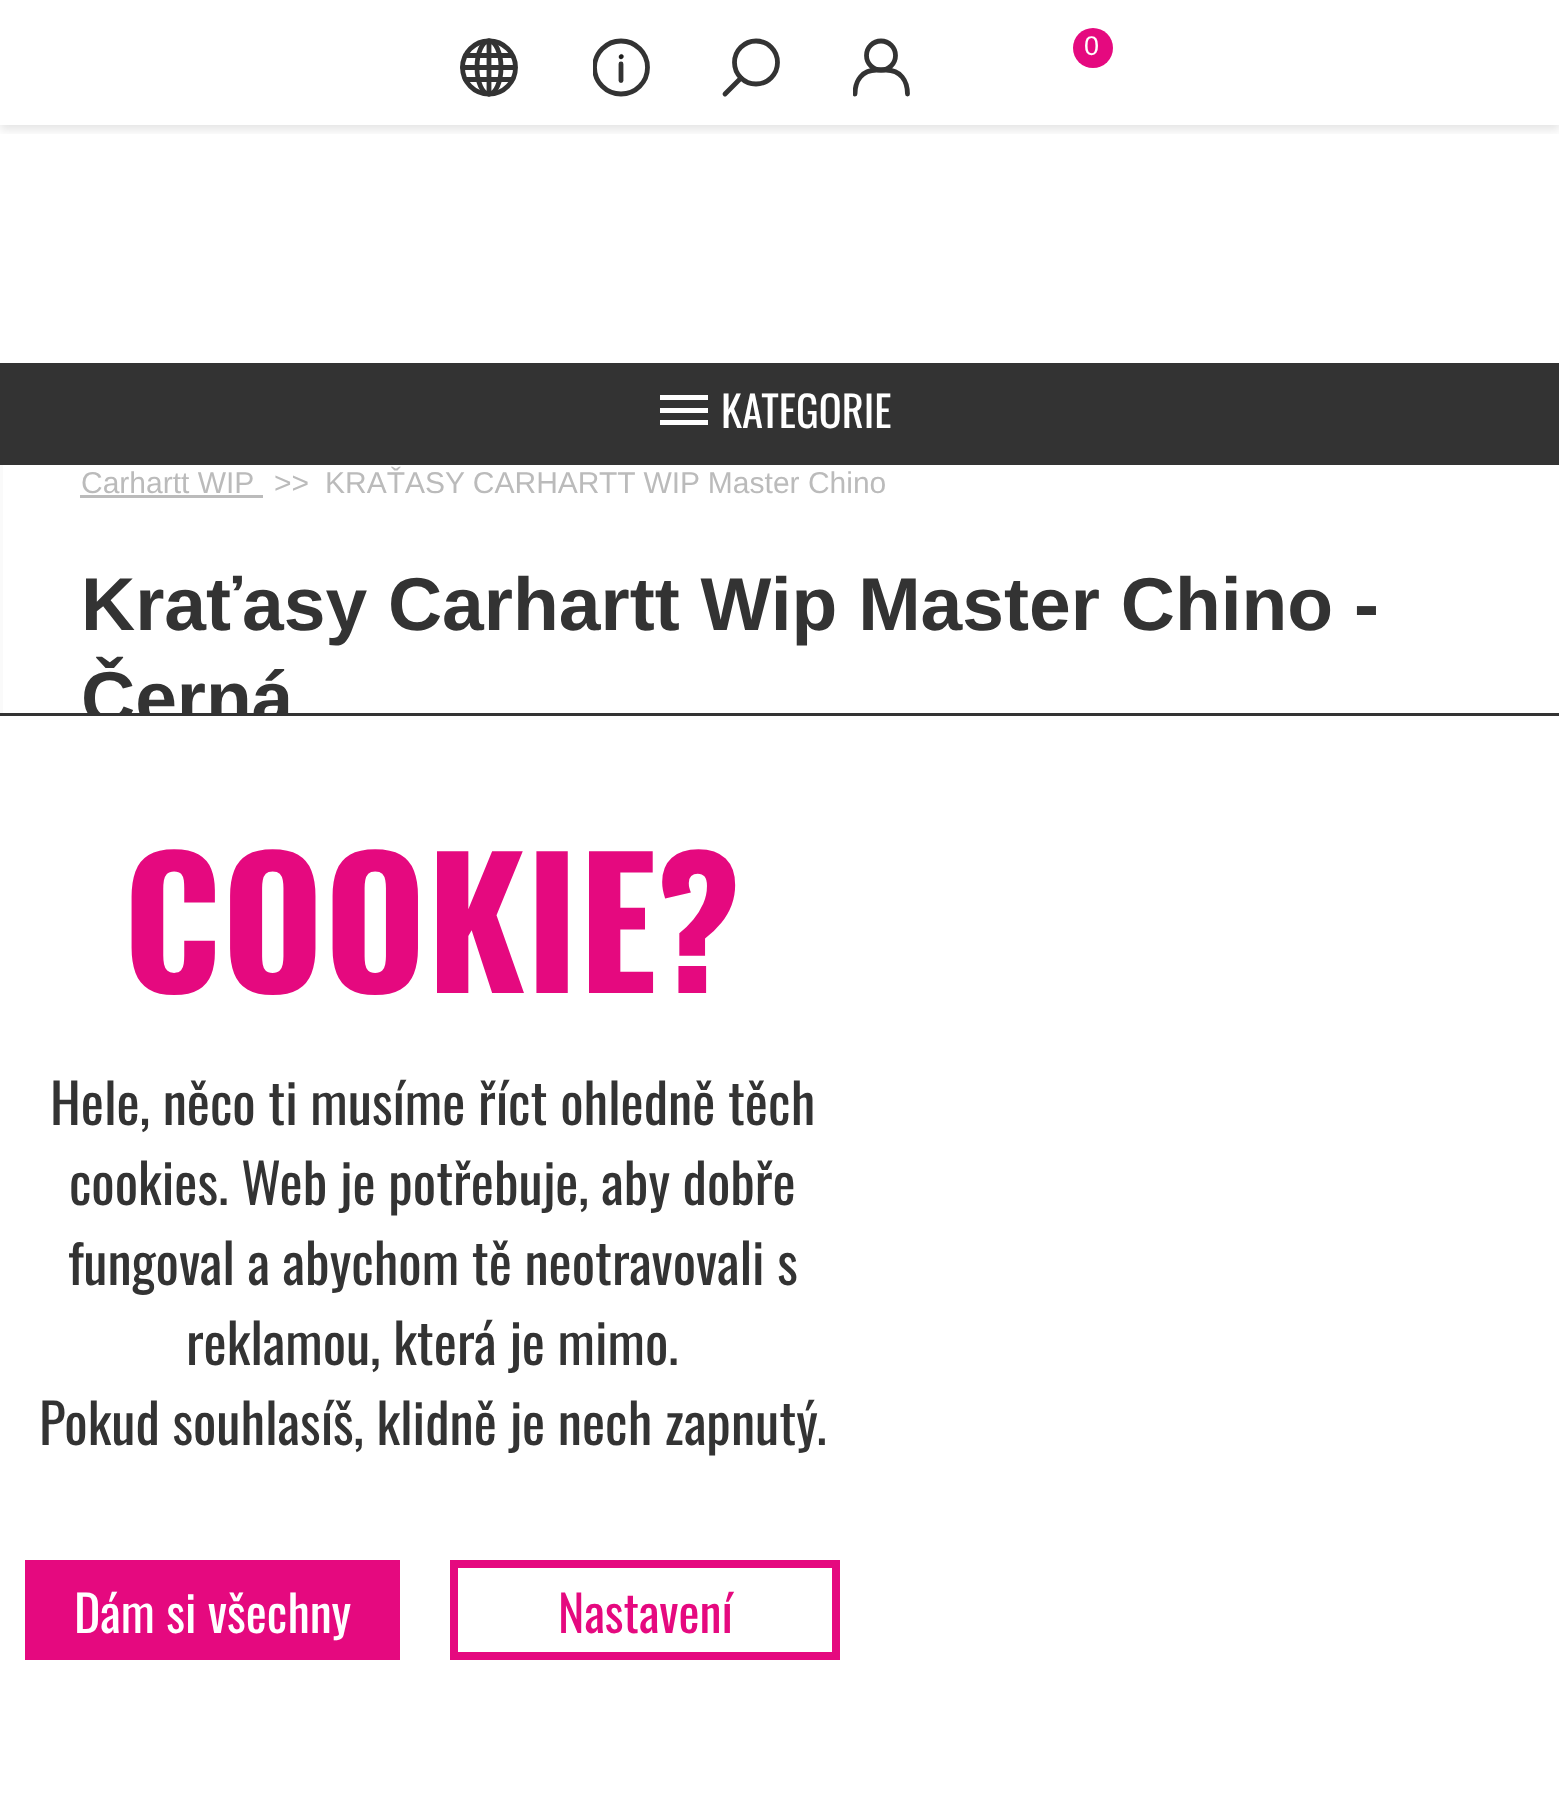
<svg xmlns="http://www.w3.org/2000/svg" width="1559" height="1809">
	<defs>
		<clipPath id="clip1"><rect x="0" y="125" width="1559" height="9" /></clipPath>
		<clipPath id="clip2"><rect x="593" y="38" width="57" height="60" /></clipPath>
		<clipPath id="clip3"><rect x="853" y="38" width="57" height="60" /></clipPath>
	</defs>
	<rect width="100%" height="100%" fill="#FFFFFF" />
	<g clip-path="url(#clip1)">
		<rect x="0" y="5" width="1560" height="125" fill="#000000" fill-opacity="0.1" filter="blur(5px)" />
	</g>
	<circle cx="489" cy="67.5" r="26.5" fill="none" stroke="#333333" stroke-width="4.8" />
	<path d="M515 67.5H462.5M489 41V94" fill="none" stroke="#333333" stroke-width="4.8" stroke-linecap="round" stroke-linejoin="round" />
	<ellipse cx="489" cy="67.5" rx="12" ry="26.5" fill="none" stroke="#333333" stroke-width="4.8" />
	<path d="M512 55.5H465.5M512 79.5H465.5" fill="none" stroke="#333333" stroke-width="4.8" stroke-linecap="round" stroke-linejoin="round" />
	<g clip-path="url(#clip2)">
		<circle cx="621" cy="67.5" r="26.5" fill="none" stroke="#333333" stroke-width="4.8" />
	</g>
	<path d="M619.5 58.5C617.5 56 621 53 623 55C625 57 621.5 60.5 619.5 58.5Z" fill="#1D1D1B" stroke="#333333" stroke-width="0.3" />
	<path d="M621 64V80.5" fill="none" stroke="#333333" stroke-width="4.8" stroke-linecap="round" stroke-linejoin="round" />
	<circle cx="756" cy="62.5" r="21.5" fill="none" stroke="#333333" stroke-width="4.8" />
	<path d="M725 94L741 78" fill="none" stroke="#333333" stroke-width="4.8" stroke-linecap="round" stroke-linejoin="round" />
	<circle cx="881" cy="55.5" r="14.5" fill="none" stroke="#333333" stroke-width="4.8" />
	<g clip-path="url(#clip3)">
		<path d="M855 94C855 80.5 862 70 876.5 70H886C900.5 70 907.5 80.5 907.5 94" fill="none" stroke="#333333" stroke-width="4.8" stroke-linecap="round" stroke-linejoin="round" />
	</g>
	<circle cx="1093" cy="48" r="20" fill="#E5097F" />
	<text x="1084" y="55" font-family="Liberation Sans" font-size="27" fill="#FFFFFF">0</text>
	<rect x="1.5" y="389.5" width="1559" height="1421" fill="none" stroke="#FAFAFA" stroke-width="3" />
	<rect x="0" y="363" width="1559" height="102" fill="#333333" />
	<rect x="660" y="420" width="48" height="5" fill="#FFFFFF" />
	<rect x="660" y="408" width="48" height="5" fill="#FFFFFF" />
	<rect x="660" y="395" width="48" height="5" fill="#FFFFFF" />
	<text x="721" y="428" font-family="Oswald" font-size="42.5" fill="#FFFFFF">KATEGORIE</text>
	<text x="81" y="493" font-family="Liberation Sans" font-size="30" fill="#BBBBBB">Carhartt WIP</text>
	<rect x="80" y="495" width="183" height="3" fill="#BBBBBB" />
	<g font-family="Liberation Sans" font-size="30" fill="#BBBBBB">
		<text x="274" y="493">&gt;&gt;</text>
		<text x="325" y="493">KRAŤASY CARHARTT WIP Master Chino</text>
	</g>
	<g font-family="Liberation Sans" font-size="75" font-weight="700" fill="#333333">
		<text x="81" y="630">Kraťasy Carhartt Wip Master Chino -</text>
		<text x="81" y="724">Černá</text>
	</g>
	<rect x="0" y="716" width="294" height="1093" fill="#FFFFFF" />
	<rect x="0" y="713" width="1559" height="3" fill="#333333" />
	<text x="123" y="993" font-family="Oswald" font-size="175" font-weight="700" fill="#E5097F">COOKIE?</text>
	<g font-family="Oswald" font-size="55" fill="#333333">
		<text x="50" y="1125">Hele, něco ti musíme říct ohledně těch</text>
		<text x="69" y="1205">cookies. Web je potřebuje, aby dobře</text>
		<text x="68" y="1285">fungoval a abychom tě neotravovali s</text>
		<text x="186" y="1365">reklamou, která je mimo.</text>
		<text x="39" y="1445">Pokud souhlasíš, klidně je nech zapnutý.</text>
	</g>
	<rect x="25" y="1560" width="375" height="100" fill="#E5097F" />
	<text x="74" y="1633" font-family="Oswald" font-size="50" fill="#FFFFFF">Dám si všechny</text>
	<rect x="454" y="1564" width="382" height="92" fill="none" stroke="#E5097F" stroke-width="8" />
	<text x="558" y="1633" font-family="Oswald" font-size="50" fill="#E5097F">Nastavení</text>
</svg>
